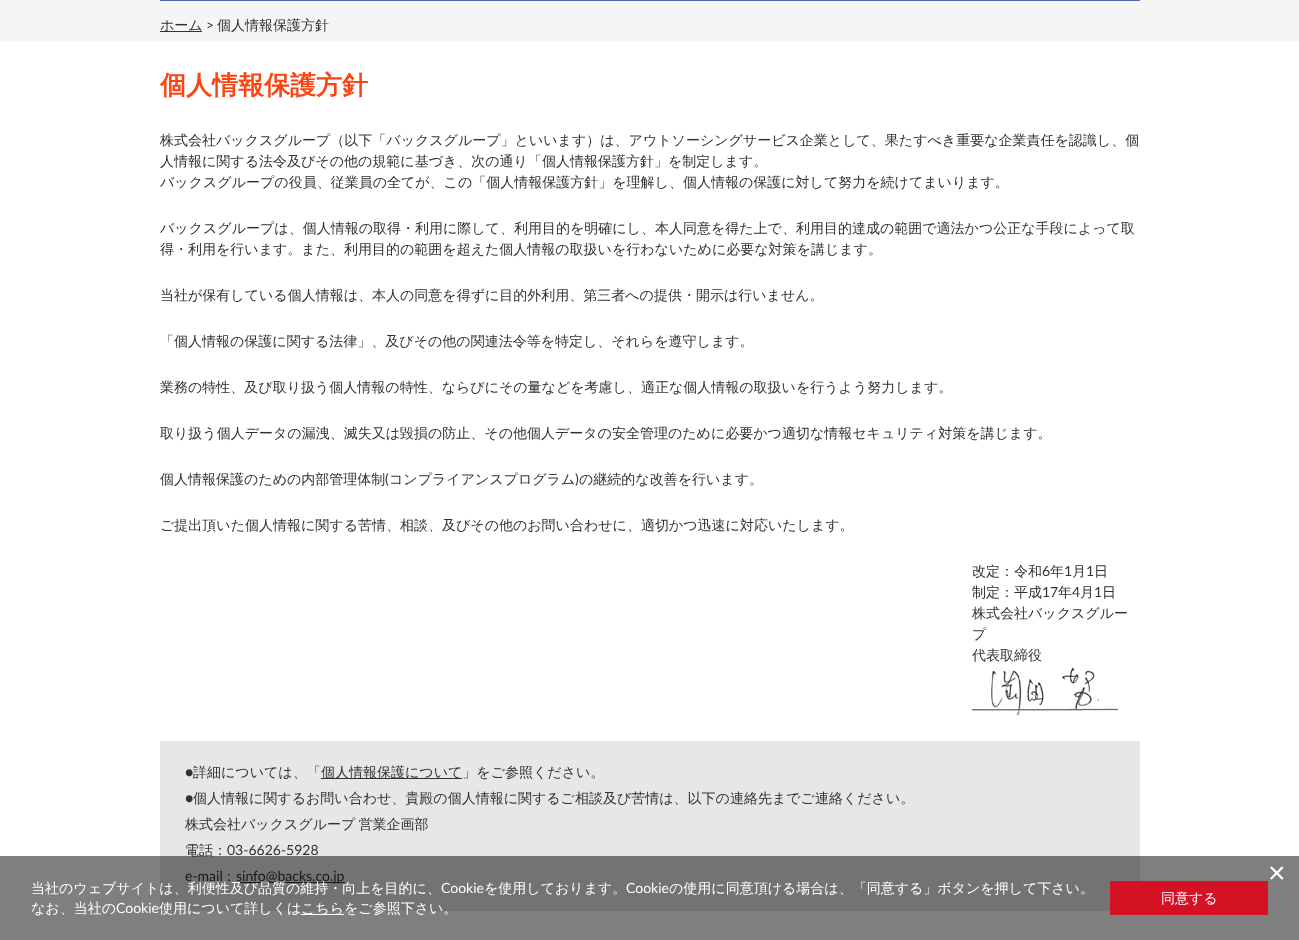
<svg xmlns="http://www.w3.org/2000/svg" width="1299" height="940">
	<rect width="100%" height="100%" fill="#FFFFFF" />
	<rect x="0" y="0" width="1299" height="41" fill="#F5F5F5" />
	<rect x="160" y="0" width="980" height="1" fill="#4F66A9" />
	<rect x="160" y="31" width="42" height="1" fill="#323232" />
	<text x="160" y="30" font-family="WenQuanYi Zen Hei" font-size="14" font-weight="500" fill="#323232">ホーム</text>
	<text x="206" y="30" font-family="Lato" font-size="14" fill="#323232">&gt;</text>
	<text x="217" y="30" font-family="WenQuanYi Zen Hei" font-size="14" font-weight="500" fill="#323232">個人情報保護方針</text>
	<text x="160" y="94" font-family="WenQuanYi Zen Hei" font-size="26" font-weight="700" fill="#FB4414">個人情報保護方針</text>
	<g font-family="WenQuanYi Zen Hei" font-size="14" font-weight="500" fill="#323232">
		<text x="160" y="145">株式会社バックスグループ（以下「バックスグループ」といいます）は、アウトソーシングサービス企業として、果たすべき重要な企業責任を認識し、個</text>
		<text x="160" y="166">人情報に関する法令及びその他の規範に基づき、次の通り「個人情報保護方針」を制定します。</text>
		<text x="160" y="187">バックスグループの役員、従業員の全てが、この「個人情報保護方針」を理解し、個人情報の保護に対して努力を続けてまいります。</text>
		<text x="160" y="233">バックスグループは、個人情報の取得・利用に際して、利用目的を明確にし、本人同意を得た上で、利用目的達成の範囲で適法かつ公正な手段によって取</text>
		<text x="160" y="254">得・利用を行います。また、利用目的の範囲を超えた個人情報の取扱いを行わないために必要な対策を講じます。</text>
		<text x="160" y="300">当社が保有している個人情報は、本人の同意を得ずに目的外利用、第三者への提供・開示は行いません。</text>
		<text x="160" y="346">「個人情報の保護に関する法律」、及びその他の関連法令等を特定し、それらを遵守します。</text>
		<text x="160" y="392">業務の特性、及び取り扱う個人情報の特性、ならびにその量などを考慮し、適正な個人情報の取扱いを行うよう努力します。</text>
		<text x="160" y="438">取り扱う個人データの漏洩、滅失又は毀損の防止、その他個人データの安全管理のために必要かつ適切な情報セキュリティ対策を講じます。</text>
		<text x="160" y="484">個人情報保護のための内部管理体制</text>
	</g>
	<text x="385" y="484" font-family="Lato" font-size="14" fill="#323232">(</text>
	<text x="389" y="484" font-family="WenQuanYi Zen Hei" font-size="14" font-weight="500" fill="#323232">コンプライアンスプログラム</text>
	<text x="575" y="484" font-family="Lato" font-size="14" fill="#323232">)</text>
	<g font-family="WenQuanYi Zen Hei" font-size="14" font-weight="500" fill="#323232">
		<text x="579" y="484">の継続的な改善を行います。</text>
		<text x="160" y="530">ご提出頂いた個人情報に関する苦情、相談、及びその他のお問い合わせに、適切かつ迅速に対応いたします。</text>
		<text x="972" y="576">改定：令和</text>
	</g>
	<text x="1042" y="576" font-family="Lato" font-size="14" fill="#323232">6</text>
	<text x="1050" y="576" font-family="WenQuanYi Zen Hei" font-size="14" font-weight="500" fill="#323232">年</text>
	<text x="1064" y="576" font-family="Lato" font-size="14" fill="#323232">1</text>
	<text x="1072" y="576" font-family="WenQuanYi Zen Hei" font-size="14" font-weight="500" fill="#323232">月</text>
	<text x="1086" y="576" font-family="Lato" font-size="14" fill="#323232">1</text>
	<g font-family="WenQuanYi Zen Hei" font-size="14" font-weight="500" fill="#323232">
		<text x="1094" y="576">日</text>
		<text x="972" y="597">制定：平成</text>
	</g>
	<text x="1042" y="597" font-family="Lato" font-size="14" fill="#323232">17</text>
	<text x="1058" y="597" font-family="WenQuanYi Zen Hei" font-size="14" font-weight="500" fill="#323232">年</text>
	<text x="1072" y="597" font-family="Lato" font-size="14" fill="#323232">4</text>
	<text x="1080" y="597" font-family="WenQuanYi Zen Hei" font-size="14" font-weight="500" fill="#323232">月</text>
	<text x="1094" y="597" font-family="Lato" font-size="14" fill="#323232">1</text>
	<g font-family="WenQuanYi Zen Hei" font-size="14" font-weight="500" fill="#323232">
		<text x="1102" y="597">日</text>
		<text x="972" y="618">株式会社バックスグルー</text>
		<text x="972" y="639">プ</text>
		<text x="972" y="660">代表取締役</text>
	</g>
	<image x="972" y="667" width="146" height="49" href="assets/img1.png" />
	<rect x="160" y="741" width="980" height="170" fill="#E7E7E7" />
	<text x="185" y="777" font-family="Lato" font-size="14" fill="#323232">●</text>
	<text x="193" y="777" font-family="WenQuanYi Zen Hei" font-size="14" font-weight="500" fill="#323232">詳細については、「</text>
	<rect x="321" y="778" width="141" height="1" fill="#323232" />
	<text x="321" y="777" font-family="WenQuanYi Zen Hei" font-size="14" font-weight="500" fill="#323232">個人情報保護について」をご参照ください。</text>
	<text x="185" y="803" font-family="Lato" font-size="14" fill="#323232">●</text>
	<g font-family="WenQuanYi Zen Hei" font-size="14" font-weight="500" fill="#323232">
		<text x="193" y="803">個人情報に関するお問い合わせ、貴殿の個人情報に関するご相談及び苦情は、以下の連絡先までご連絡ください。</text>
		<text x="185" y="829" word-spacing="-1">株式会社バックスグループ 営業企画部</text>
		<text x="185" y="855">電話：</text>
	</g>
	<g font-family="Lato" font-size="14" fill="#323232">
		<text x="227" y="855">03-6626-5928</text>
		<text x="185" y="881">e-mail</text>
	</g>
	<text x="222" y="881" font-family="WenQuanYi Zen Hei" font-size="14" font-weight="500" fill="#323232">：</text>
	<rect x="236" y="882" width="109" height="1" fill="#323232" />
	<text x="236" y="881" font-family="Lato" font-size="14" fill="#323232">sinfo@backs.co.jp</text>
	<rect x="0" y="856" width="1299" height="84" fill="#000000" fill-opacity="0.5" />
	<text x="1268" y="883" font-family="Liberation Sans" font-size="30" fill="#FFFFFF">×</text>
	<text x="31" y="893" font-family="WenQuanYi Zen Hei" font-size="14" font-weight="500" fill="#FFFFFF">当社のウェブサイトは、利便性及び品質の維持・向上を目的に、</text>
	<text x="441" y="893" font-family="Lato" font-size="14" fill="#FFFFFF">Cookie</text>
	<text x="484" y="893" font-family="WenQuanYi Zen Hei" font-size="14" font-weight="500" fill="#FFFFFF">を使用しております。</text>
	<text x="626" y="893" font-family="Lato" font-size="14" fill="#FFFFFF">Cookie</text>
	<g font-family="WenQuanYi Zen Hei" font-size="14" font-weight="500" fill="#FFFFFF">
		<text x="669" y="893">の使用に同意頂ける場合は、「同意する」ボタンを押して下さい。</text>
		<text x="31" y="913">なお、当社の</text>
	</g>
	<text x="116" y="913" font-family="Lato" font-size="14" fill="#FFFFFF">Cookie</text>
	<text x="159" y="913" font-family="WenQuanYi Zen Hei" font-size="14" font-weight="500" fill="#FFFFFF">使用について詳しくは</text>
	<rect x="301" y="914" width="43" height="1" fill="#FFFFFF" />
	<text x="301" y="913" font-family="WenQuanYi Zen Hei" font-size="14" font-weight="500" fill="#FFFFFF">こちらをご参照下さい。</text>
	<rect x="1110" y="881" width="158" height="34" fill="#D41224" />
	<text x="1161" y="903" font-family="WenQuanYi Zen Hei" font-size="14" font-weight="500" fill="#FFFFFF">同意する</text>
</svg>
